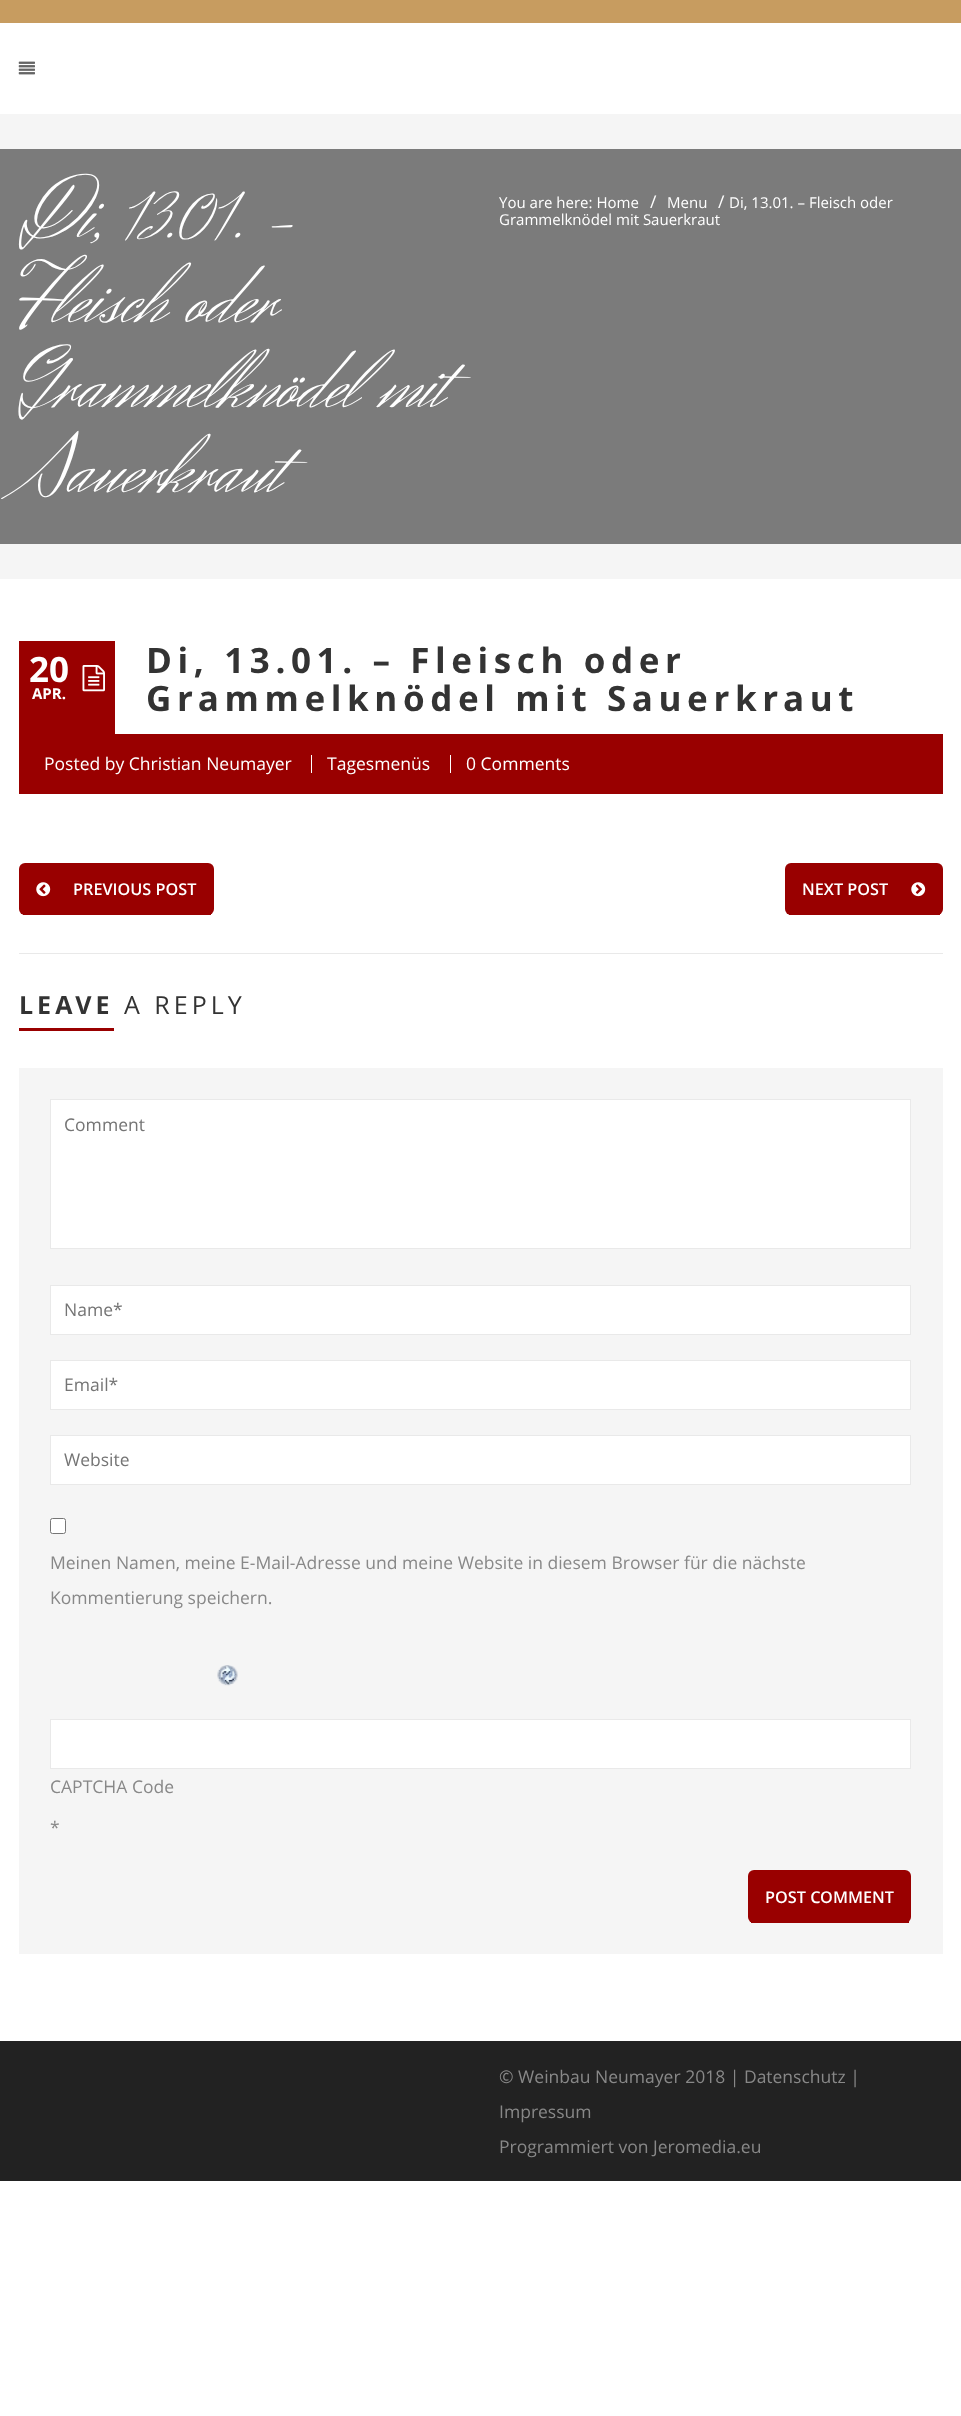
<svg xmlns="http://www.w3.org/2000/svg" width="961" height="2416">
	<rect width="100%" height="100%" fill="#FFFFFF" />
	<rect x="0" y="0" width="961" height="23" fill="#C79C60" />
	<image x="18" y="61" width="17" height="14" href="assets/img1.png" />
	<rect x="0" y="114" width="961" height="465" fill="#F5F5F5" />
	<rect x="0" y="149" width="961" height="395" fill="#7B7B7B" />
	<g font-family="Herr Von Muellerhoff" font-size="85" fill="#FFFFFF">
		<text x="19" y="237">Di, 13.01. –</text>
		<text x="19" y="322">Fleisch oder</text>
		<text x="19" y="407">Grammelknödel mit</text>
		<text x="19" y="492">Sauerkraut</text>
	</g>
	<text x="499" y="208" font-family="Open Sans" font-size="15" fill="#FFFFFF">You are here: Home</text>
	<text x="650" y="208" font-family="Open Sans" font-size="17.5" fill="#FFFFFF">/</text>
	<text x="667" y="208" font-family="Open Sans" font-size="15" fill="#FFFFFF">Menu</text>
	<text x="718" y="208" font-family="Open Sans" font-size="17.5" fill="#FFFFFF">/</text>
	<g font-family="Open Sans" font-size="15" fill="#FFFFFF">
		<text x="729" y="208">Di, 13.01. – Fleisch oder</text>
		<text x="499" y="225">Grammelknödel mit Sauerkraut</text>
	</g>
	<rect x="19" y="641" width="96" height="93" fill="#990000" />
	<text x="29" y="682" font-family="Open Sans" font-size="35" font-weight="700" fill="#FFFFFF">20</text>
	<text x="32" y="699" font-family="Open Sans" font-size="15" font-weight="700" fill="#FFFFFF">APR.</text>
	<image x="82" y="665" width="23" height="27" href="assets/img2.png" />
	<g font-family="Open Sans" font-size="35" font-weight="700" letter-spacing="5.6" fill="#333333">
		<text x="146" y="673">Di, 13.01. – Fleisch oder</text>
		<text x="146" y="711">Grammelknödel mit Sauerkraut</text>
	</g>
	<rect x="19" y="734" width="924" height="60" fill="#990000" />
	<text x="44" y="770" font-family="Open Sans" font-size="17.5" fill="#FFFFFF">Posted by Christian Neumayer</text>
	<rect x="311" y="755" width="1" height="18" fill="#FFFFFF" />
	<text x="327" y="770" font-family="Open Sans" font-size="17.5" fill="#FFFFFF">Tagesmenüs</text>
	<rect x="450" y="755" width="1" height="18" fill="#FFFFFF" />
	<text x="466" y="770" font-family="Open Sans" font-size="17.5" fill="#FFFFFF">0 Comments</text>
	<rect x="19" y="863" width="195" height="52" rx="6" fill="#990000" />
	<rect x="23" y="914" width="188" height="1" fill="#990000" />
	<image x="36" y="882" width="15" height="15" href="assets/img3.png" />
	<text x="73" y="895" font-family="Open Sans" font-size="16.25" font-weight="600" fill="#FFFFFF">PREVIOUS POST</text>
	<rect x="785" y="863" width="158" height="52" rx="6" fill="#990000" />
	<rect x="789" y="914" width="151" height="1" fill="#990000" />
	<text x="802" y="895" font-family="Open Sans" font-size="16.25" font-weight="600" fill="#FFFFFF">NEXT POST</text>
	<image x="911" y="882" width="15" height="15" href="assets/img4.png" />
	<rect x="19" y="953" width="924" height="1" fill="#E9E9E9" />
	<rect x="19" y="1028" width="95" height="3" fill="#990000" />
	<text x="19" y="1014" font-family="Open Sans" font-size="25" font-weight="700" letter-spacing="4" fill="#333333">LEAVE</text>
	<text x="124" y="1014" font-family="Open Sans" font-size="25" letter-spacing="4" fill="#333333">A REPLY</text>
	<rect x="19" y="1068" width="924" height="886" fill="#F5F5F5" />
	<rect x="50.5" y="1099.5" width="860" height="149" fill="#FFFFFF" stroke="#E9E9E9" />
	<text x="64" y="1131" font-family="Open Sans" font-size="17.5" fill="#757575">Comment</text>
	<rect x="50.5" y="1285.5" width="860" height="49" fill="#FFFFFF" stroke="#E9E9E9" />
	<text x="64" y="1316" font-family="Open Sans" font-size="17.5" fill="#757575">Name*</text>
	<rect x="50.5" y="1360.5" width="860" height="49" fill="#FFFFFF" stroke="#E9E9E9" />
	<text x="64" y="1391" font-family="Open Sans" font-size="17.5" fill="#757575">Email*</text>
	<rect x="50.5" y="1435.5" width="860" height="49" fill="#FFFFFF" stroke="#E9E9E9" />
	<text x="64" y="1466" font-family="Open Sans" font-size="17.5" fill="#757575">Website</text>
	<rect x="50.5" y="1518.5" width="15" height="15" rx="2" fill="#FFFFFF" stroke="#767676" />
	<g font-family="Open Sans" font-size="17.5" fill="#888888">
		<text x="50" y="1569">Meinen Namen, meine E-Mail-Adresse und meine Website in diesem Browser für die nächste</text>
		<text x="50" y="1604">Kommentierung speichern.</text>
	</g>
	<image x="217" y="1665" width="21" height="21" href="assets/img5.png" />
	<rect x="50.5" y="1719.5" width="860" height="49" fill="#FFFFFF" stroke="#E9E9E9" />
	<g font-family="Open Sans" font-size="17.5" fill="#888888">
		<text x="50" y="1793">CAPTCHA Code</text>
		<text x="50" y="1834">*</text>
	</g>
	<rect x="748" y="1870" width="163" height="53" rx="6" fill="#990000" />
	<rect x="751" y="1921" width="158" height="2" fill="#990000" />
	<text x="765" y="1903" font-family="Open Sans" font-size="16.25" font-weight="600" fill="#FFFFFF">POST COMMENT</text>
	<rect x="0" y="2041" width="961" height="140" fill="#222222" />
	<g font-family="Open Sans" font-size="17.5" fill="#888888">
		<text x="499" y="2083">© Weinbau Neumayer 2018 | Datenschutz |</text>
		<text x="499" y="2118">Impressum</text>
		<text x="499" y="2153">Programmiert von Jeromedia.eu</text>
	</g>
</svg>
